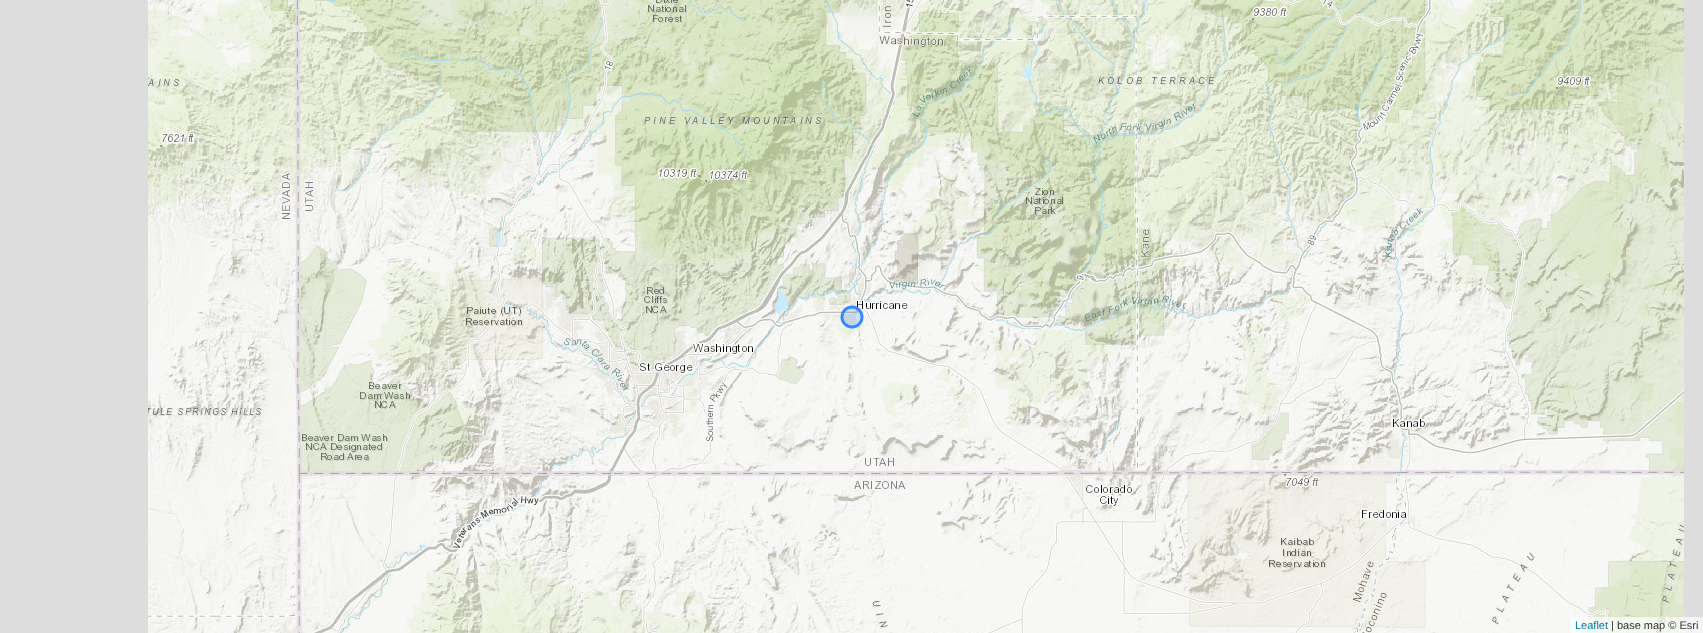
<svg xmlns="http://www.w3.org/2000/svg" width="1703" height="633">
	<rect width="100%" height="100%" fill="#DDDDDD" />
	<image x="148" y="0" width="256" height="71" href="assets/img1.png" />
	<image x="404" y="0" width="256" height="71" href="assets/img2.png" />
	<image x="660" y="0" width="256" height="71" href="assets/img3.png" />
	<image x="916" y="0" width="256" height="71" href="assets/img4.png" />
	<image x="1172" y="0" width="256" height="71" href="assets/img5.png" />
	<image x="1428" y="0" width="256" height="71" href="assets/img6.png" />
	<image x="148" y="71" width="256" height="256" href="assets/img7.png" />
	<image x="404" y="71" width="256" height="256" href="assets/img8.png" />
	<image x="660" y="71" width="256" height="256" href="assets/img9.png" />
	<image x="916" y="71" width="256" height="256" href="assets/img10.png" />
	<image x="1172" y="71" width="256" height="256" href="assets/img11.png" />
	<image x="1428" y="71" width="256" height="256" href="assets/img12.png" />
	<image x="148" y="327" width="256" height="256" href="assets/img13.png" />
	<image x="404" y="327" width="256" height="256" href="assets/img14.png" />
	<image x="660" y="327" width="256" height="256" href="assets/img15.png" />
	<image x="916" y="327" width="256" height="256" href="assets/img16.png" />
	<image x="1172" y="327" width="256" height="256" href="assets/img17.png" />
	<image x="1428" y="327" width="256" height="256" href="assets/img18.png" />
	<image x="148" y="583" width="256" height="50" href="assets/img19.png" />
	<image x="404" y="583" width="256" height="50" href="assets/img20.png" />
	<image x="660" y="583" width="256" height="50" href="assets/img21.png" />
	<image x="916" y="583" width="256" height="50" href="assets/img22.png" />
	<image x="1172" y="583" width="256" height="50" href="assets/img23.png" />
	<image x="1428" y="583" width="256" height="50" href="assets/img24.png" />
	<image x="840" y="305" width="24" height="24" href="assets/img25.png" />
	<rect x="1570" y="617" width="133" height="16" fill="#FFFFFF" fill-opacity="0.7" />
	<text x="1575" y="629" font-family="Liberation Sans" font-size="11" fill="#0078A8">Leaflet</text>
	<text x="1611" y="629" font-family="Liberation Sans" font-size="11" fill="#333333">| base map © Esri</text>
</svg>
